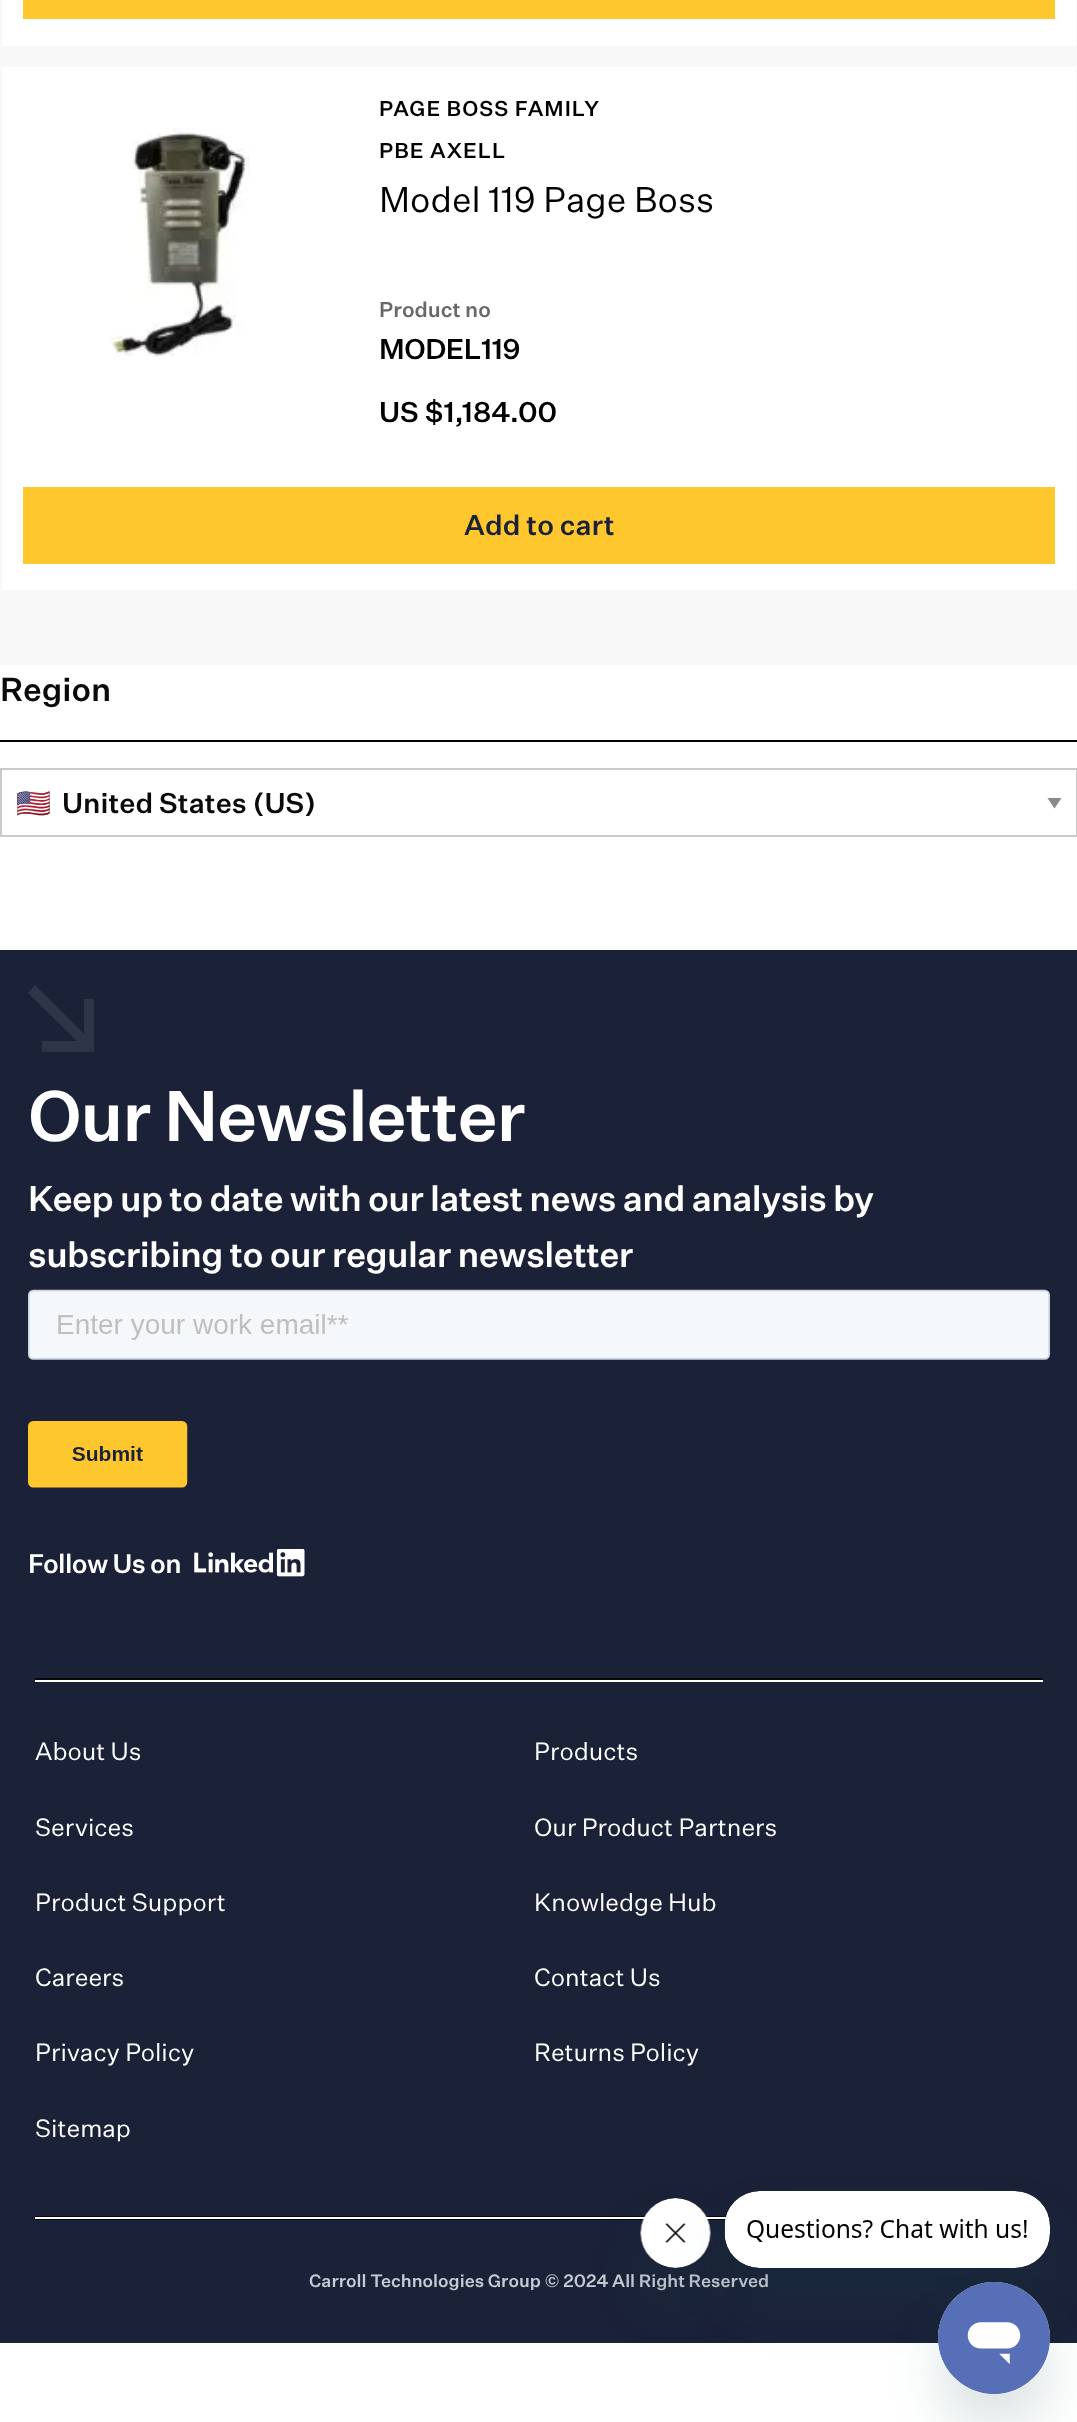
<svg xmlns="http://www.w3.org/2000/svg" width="1077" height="2422">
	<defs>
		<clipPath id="clip1"><rect x="16" y="782" width="1018" height="42" /></clipPath>
	</defs>
	<rect width="100%" height="100%" fill="#FFFFFF" />
	<rect x="0" y="0" width="1077" height="665" fill="#F8F8F8" />
	<rect x="2" y="0" width="1074" height="46" fill="#FFFFFF" />
	<rect x="23" y="0" width="1032" height="19" fill="#FFC72E" />
	<rect x="2" y="67" width="1074" height="523" fill="#FFFFFF" />
	<image x="110" y="128" width="140" height="230" href="assets/img1.png" />
	<g font-family="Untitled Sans" font-size="21" font-weight="500" letter-spacing="1" fill="#000000">
		<text x="379" y="116">PAGE BOSS FAMILY</text>
		<text x="379" y="158">PBE AXELL</text>
	</g>
	<text x="379" y="212" font-family="Untitled Sans" font-size="35" fill="#000000">Model 119 Page Boss</text>
	<text x="379" y="317" font-family="Untitled Sans" font-size="21" font-weight="500" fill="#686868">Product no</text>
	<text x="379" y="359" font-family="Untitled Sans" font-size="28" font-weight="500" letter-spacing="-0.5" fill="#000000">MODEL119</text>
	<text x="379" y="422" font-family="Untitled Sans" font-size="28" font-weight="500" fill="#000000">US $1,184.00</text>
	<rect x="23" y="487" width="1032" height="77" fill="#FFC72E" />
	<text x="464" y="535" font-family="Untitled Sans" font-size="28" font-weight="500" fill="#1B2238">Add to cart</text>
	<rect x="0" y="740" width="1077" height="2" fill="#000000" />
	<text x="0" y="701" font-family="Untitled Sans" font-size="32.5" font-weight="500" fill="#0A0A0A">Region</text>
	<path d="M1047.5 798H1061.5L1054.5 808.5Z" fill="#8A8A8A" />
	<rect x="1" y="769" width="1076" height="67" fill="none" stroke="#CACACA" stroke-width="2" />
	<g clip-path="url(#clip1)">
		<text x="16" y="813" font-family="Noto Color Emoji" font-size="28" fill="#0A0A0A">🇺🇸</text>
	</g>
	<text x="62" y="813" font-family="Untitled Sans" font-size="28" font-weight="500" fill="#0A0A0A">United States (US)</text>
	<rect x="0" y="950" width="1077" height="1393" fill="#1B2238" />
	<path d="M94 999H84V1034L35 985L28 993L77 1041H42V1052H94Z" fill="#2F3549" fill-rule="evenodd" />
	<text x="28" y="1141" font-family="Untitled Sans" font-size="70" font-weight="500" letter-spacing="-1.25" fill="#FFFFFF">Our Newsletter</text>
	<g font-family="Untitled Sans" font-size="35" font-weight="500" letter-spacing="-0.6" fill="#FFFFFF">
		<text x="28" y="1211">Keep up to date with our latest news and analysis by</text>
		<text x="28" y="1267">subscribing to our regular newsletter</text>
	</g>
	<image x="28" y="1289" width="1022" height="199" href="assets/img2.png" />
	<text x="28" y="1573" font-family="Untitled Sans" font-size="26.25" font-weight="500" letter-spacing="-0.6" fill="#FFFFFF">Follow Us on</text>
	<image x="194" y="1549" width="111" height="28" href="assets/img3.png" />
	<rect x="35" y="1678" width="1008" height="2" fill="#0A0A0A" />
	<rect x="35" y="1680" width="1008" height="2" fill="#FFFFFF" />
	<g font-family="Untitled Sans" font-size="24.5" fill="#FFFFFF">
		<text x="35" y="1760">About Us</text>
		<text x="534" y="1760">Products</text>
		<text x="35" y="1836">Services</text>
		<text x="534" y="1836">Our Product Partners</text>
		<text x="35" y="1911">Product Support</text>
		<text x="534" y="1911">Knowledge Hub</text>
		<text x="35" y="1986">Careers</text>
		<text x="534" y="1986">Contact Us</text>
		<text x="35" y="2061">Privacy Policy</text>
		<text x="534" y="2061">Returns Policy</text>
		<text x="35" y="2137">Sitemap</text>
	</g>
	<rect x="35" y="2216" width="692" height="4" fill="#0A0A0A" />
	<rect x="35" y="2217" width="691" height="2" fill="#FFFFFF" />
	<text x="309" y="2287" font-family="Untitled Sans" font-size="17.5" font-weight="500" fill="#C7CBD6">Carroll Technologies Group © 2024 All Right Reserved</text>
	<rect x="641" y="2233" width="70" height="70" rx="35" fill="#17494D" fill-opacity="0.15" filter="blur(26px)" />
	<image x="640" y="2198" width="71" height="70" href="assets/img5.png" />
	<rect x="725" y="2226" width="325" height="77" rx="35" fill="#17494D" fill-opacity="0.15" filter="blur(26px)" />
	<image x="724" y="2191" width="326" height="77" href="assets/img4.png" />
	<rect x="938" y="2317" width="112" height="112" rx="56" fill="#17494D" fill-opacity="0.15" filter="blur(26px)" />
	<image x="938" y="2282" width="112" height="112" href="assets/img6.png" />
</svg>
